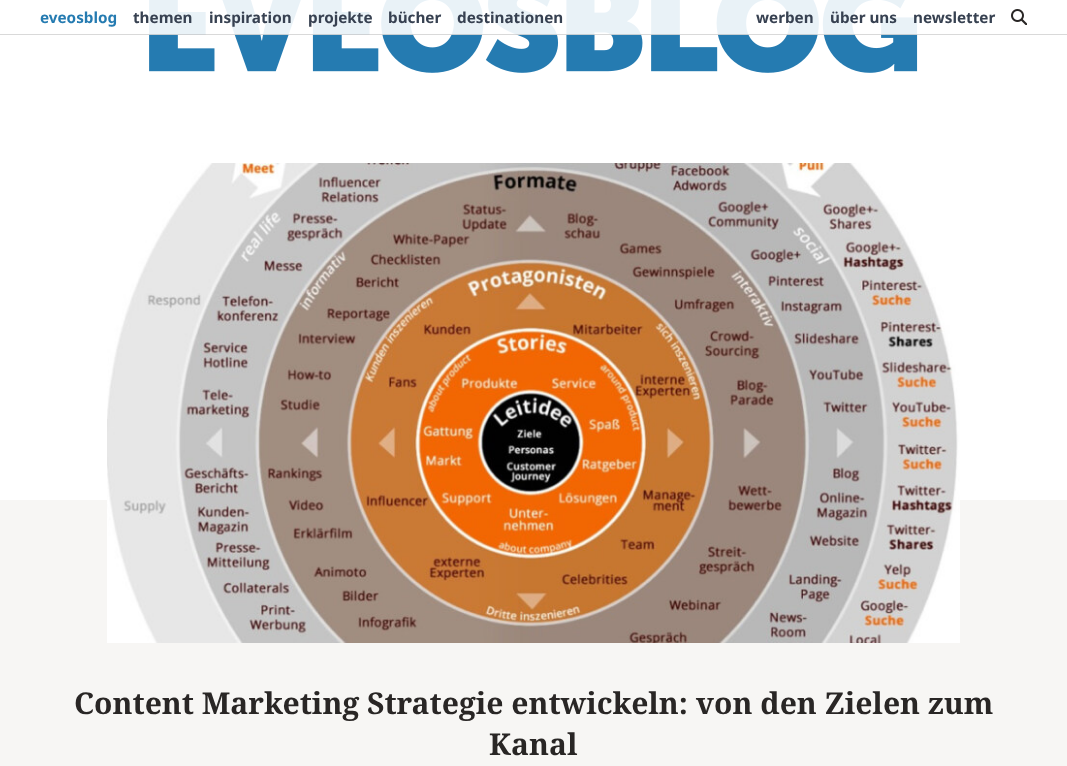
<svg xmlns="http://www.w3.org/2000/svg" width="1067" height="766">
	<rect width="100%" height="100%" fill="#F7F6F4" />
	<rect x="0" y="0" width="1067" height="500" fill="#FFFFFF" />
	<image x="149" y="0" width="769" height="73" href="assets/img1.png" />
	<rect x="149" y="0" width="769" height="35" fill="#FFFFFF" fill-opacity="0.9" />
	<rect x="0" y="34" width="1067" height="1" fill="#000000" fill-opacity="0.15" />
	<text x="40" y="23" font-family="Noto Sans" font-size="15.25" font-weight="700" fill="#257BB1">eveosblog</text>
	<g font-family="Noto Sans" font-size="15.25" font-weight="700" fill="#374151">
		<text x="133" y="23">themen</text>
		<text x="209" y="23">inspiration</text>
		<text x="308" y="23">projekte</text>
		<text x="388" y="23">bücher</text>
		<text x="457" y="23">destinationen</text>
		<text x="756" y="23">werben</text>
		<text x="830" y="23">über uns</text>
		<text x="913" y="23">newsletter</text>
	</g>
	<image x="1011" y="9" width="16" height="16" href="assets/img2.png" />
	<image x="107" y="163" width="853" height="480" href="assets/img3.png" />
	<g font-family="Noto Serif" font-size="30" font-weight="700" fill="#292625">
		<text x="74" y="714">Content Marketing Strategie entwickeln: von den Zielen zum</text>
		<text x="489" y="755">Kanal</text>
	</g>
</svg>
